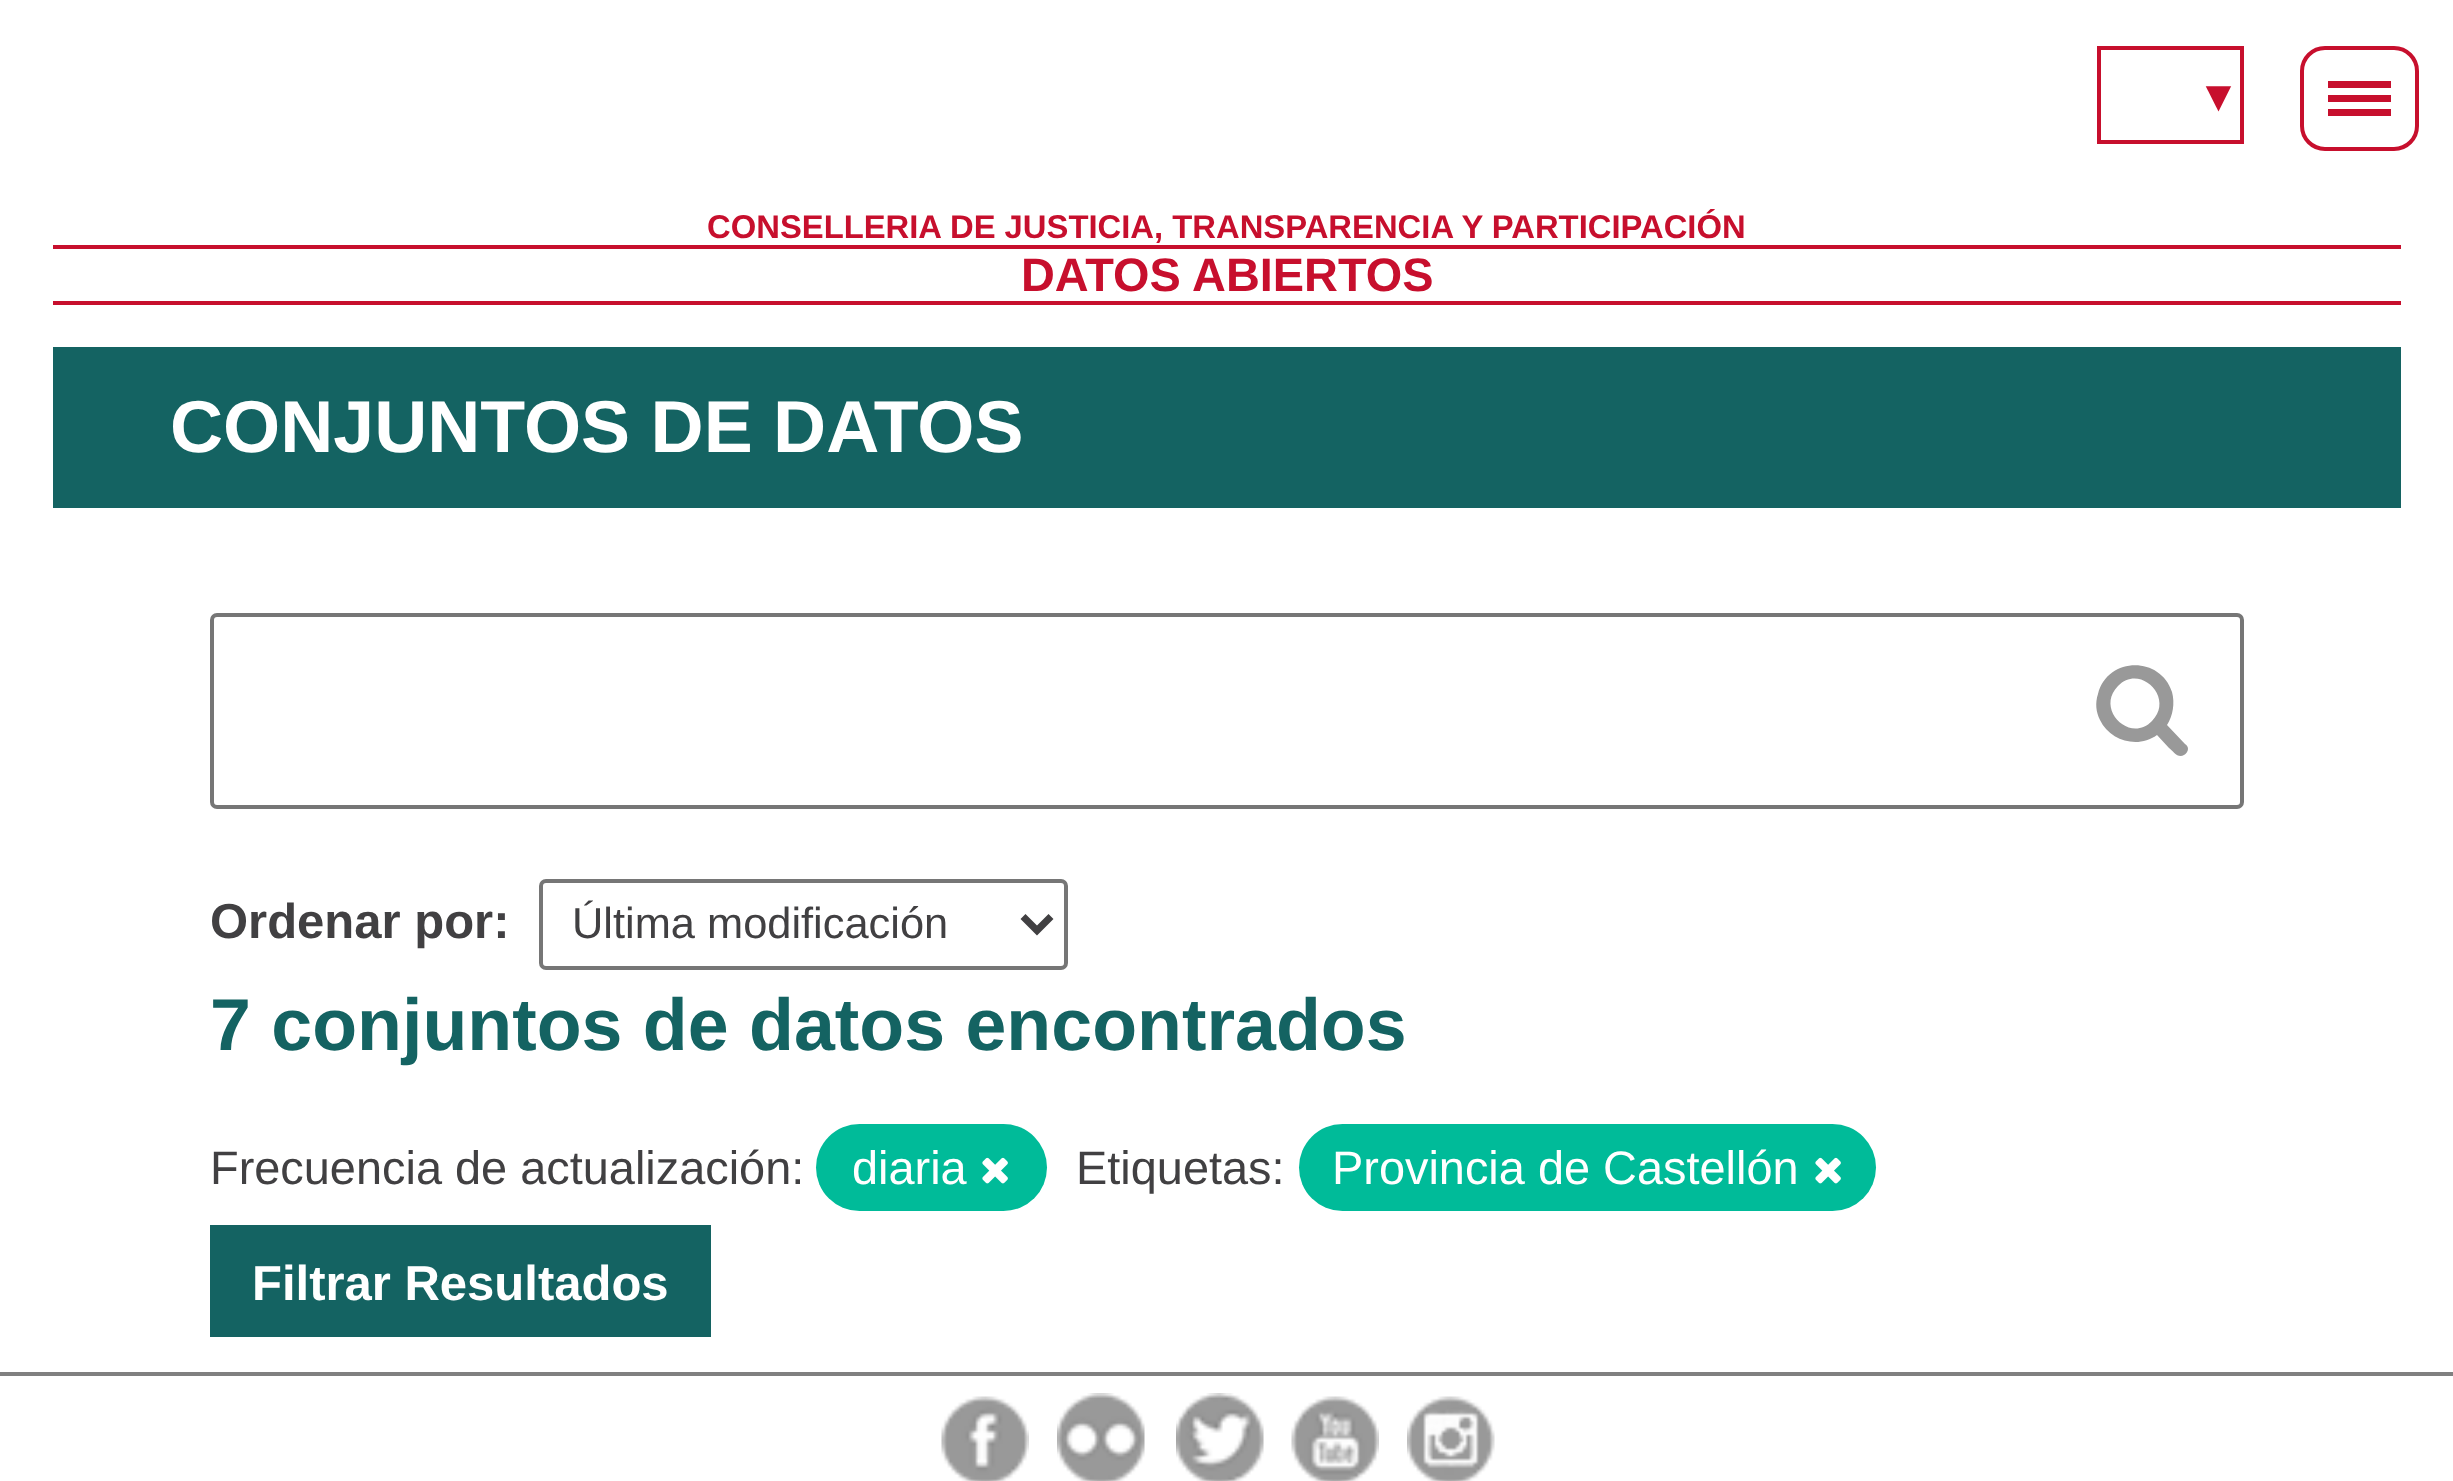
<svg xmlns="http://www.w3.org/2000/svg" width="2453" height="1481">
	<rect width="100%" height="100%" fill="#FFFFFF" />
	<rect x="2099" y="48" width="143" height="94" fill="none" stroke="#C70F2D" stroke-width="4" />
	<text x="2197" y="111" font-family="Liberation Sans" font-size="43.4" fill="#C70F2D">▼</text>
	<rect x="2302" y="48" width="115" height="101" rx="23" fill="none" stroke="#C70F2D" stroke-width="4" />
	<rect x="2328" y="81" width="63" height="7" fill="#C70F2D" />
	<rect x="2328" y="95" width="63" height="7" fill="#C70F2D" />
	<rect x="2328" y="109" width="63" height="7" fill="#C70F2D" />
	<text x="707" y="238" font-family="Liberation Sans" font-size="32.8" font-weight="700" fill="#C70F2D">CONSELLERIA DE JUSTICIA, TRANSPARENCIA Y PARTICIPACIÓN</text>
	<rect x="53" y="245" width="2348" height="4" fill="#C70F2D" />
	<rect x="53" y="301" width="2348" height="4" fill="#C70F2D" />
	<text x="1021" y="291" font-family="Liberation Sans" font-size="46.9" font-weight="700" fill="#C70F2D">DATOS ABIERTOS</text>
	<rect x="53" y="347" width="2348" height="161" fill="#146362" />
	<text x="170" y="452" font-family="Liberation Sans" font-size="73.5" font-weight="700" fill="#FFFFFF">CONJUNTOS DE DATOS</text>
	<rect x="212" y="615" width="2030" height="192" rx="5" fill="none" stroke="#767676" stroke-width="4" />
	<path d="M2152 721C2175 698 2140 663 2118 686C2095 709 2130 744 2152 721ZM2188 749C2188 751 2186 754 2184 755C2178 759 2173 751 2169 748L2157 735C2138 749 2110 741 2100 720C2096 712 2095 703 2098 694C2107 657 2160 655 2172 692C2175 703 2173 716 2167 725L2185 744C2187 745 2188 747 2188 749Z" fill="#999999" />
	<text x="210" y="938" font-family="Liberation Sans" font-size="49" font-weight="700" fill="#414042">Ordenar por:</text>
	<rect x="541" y="881" width="525" height="87" rx="5" fill="none" stroke="#767676" stroke-width="4" />
	<path d="M1023 916.5L1037 930.5L1051 916.5" fill="none" stroke="#414042" stroke-width="7" />
	<text x="572" y="938" font-family="Liberation Sans" font-size="43.4" fill="#414042">Última modificación</text>
	<text x="210" y="1050" font-family="Liberation Sans" font-size="73.5" font-weight="700" fill="#146362">7 conjuntos de datos encontrados</text>
	<text x="210" y="1184" font-family="Liberation Sans" font-size="46.9" fill="#414042">Frecuencia de actualización:</text>
	<rect x="816" y="1124" width="231" height="87" rx="43.5" fill="#00BB99" />
	<text x="852" y="1184" font-family="Liberation Sans" font-size="46.9" fill="#FFFFFF">diaria</text>
	<image x="982" y="1157" width="26" height="27" href="assets/img1.png" />
	<text x="1076" y="1184" font-family="Liberation Sans" font-size="46.9" fill="#414042">Etiquetas:</text>
	<rect x="1299" y="1124" width="577" height="87" rx="43.5" fill="#00BB99" />
	<text x="1332" y="1184" font-family="Liberation Sans" font-size="46.9" fill="#FFFFFF">Provincia de Castellón</text>
	<image x="1815" y="1157" width="26" height="27" href="assets/img1.png" />
	<rect x="210" y="1225" width="501" height="112" fill="#146362" />
	<text x="252" y="1300" font-family="Liberation Sans" font-size="49" font-weight="700" fill="#FFFFFF">Filtrar Resultados</text>
	<rect x="0" y="1372" width="2453" height="4" fill="#808080" />
	<image x="941" y="1396" width="88" height="85" href="assets/img2.png" />
	<image x="1057" y="1393" width="88" height="88" href="assets/img3.png" />
	<image x="1176" y="1393" width="88" height="88" href="assets/img4.png" />
	<image x="1291" y="1396" width="88" height="85" href="assets/img5.png" />
	<image x="1407" y="1396" width="88" height="85" href="assets/img6.png" />
</svg>
